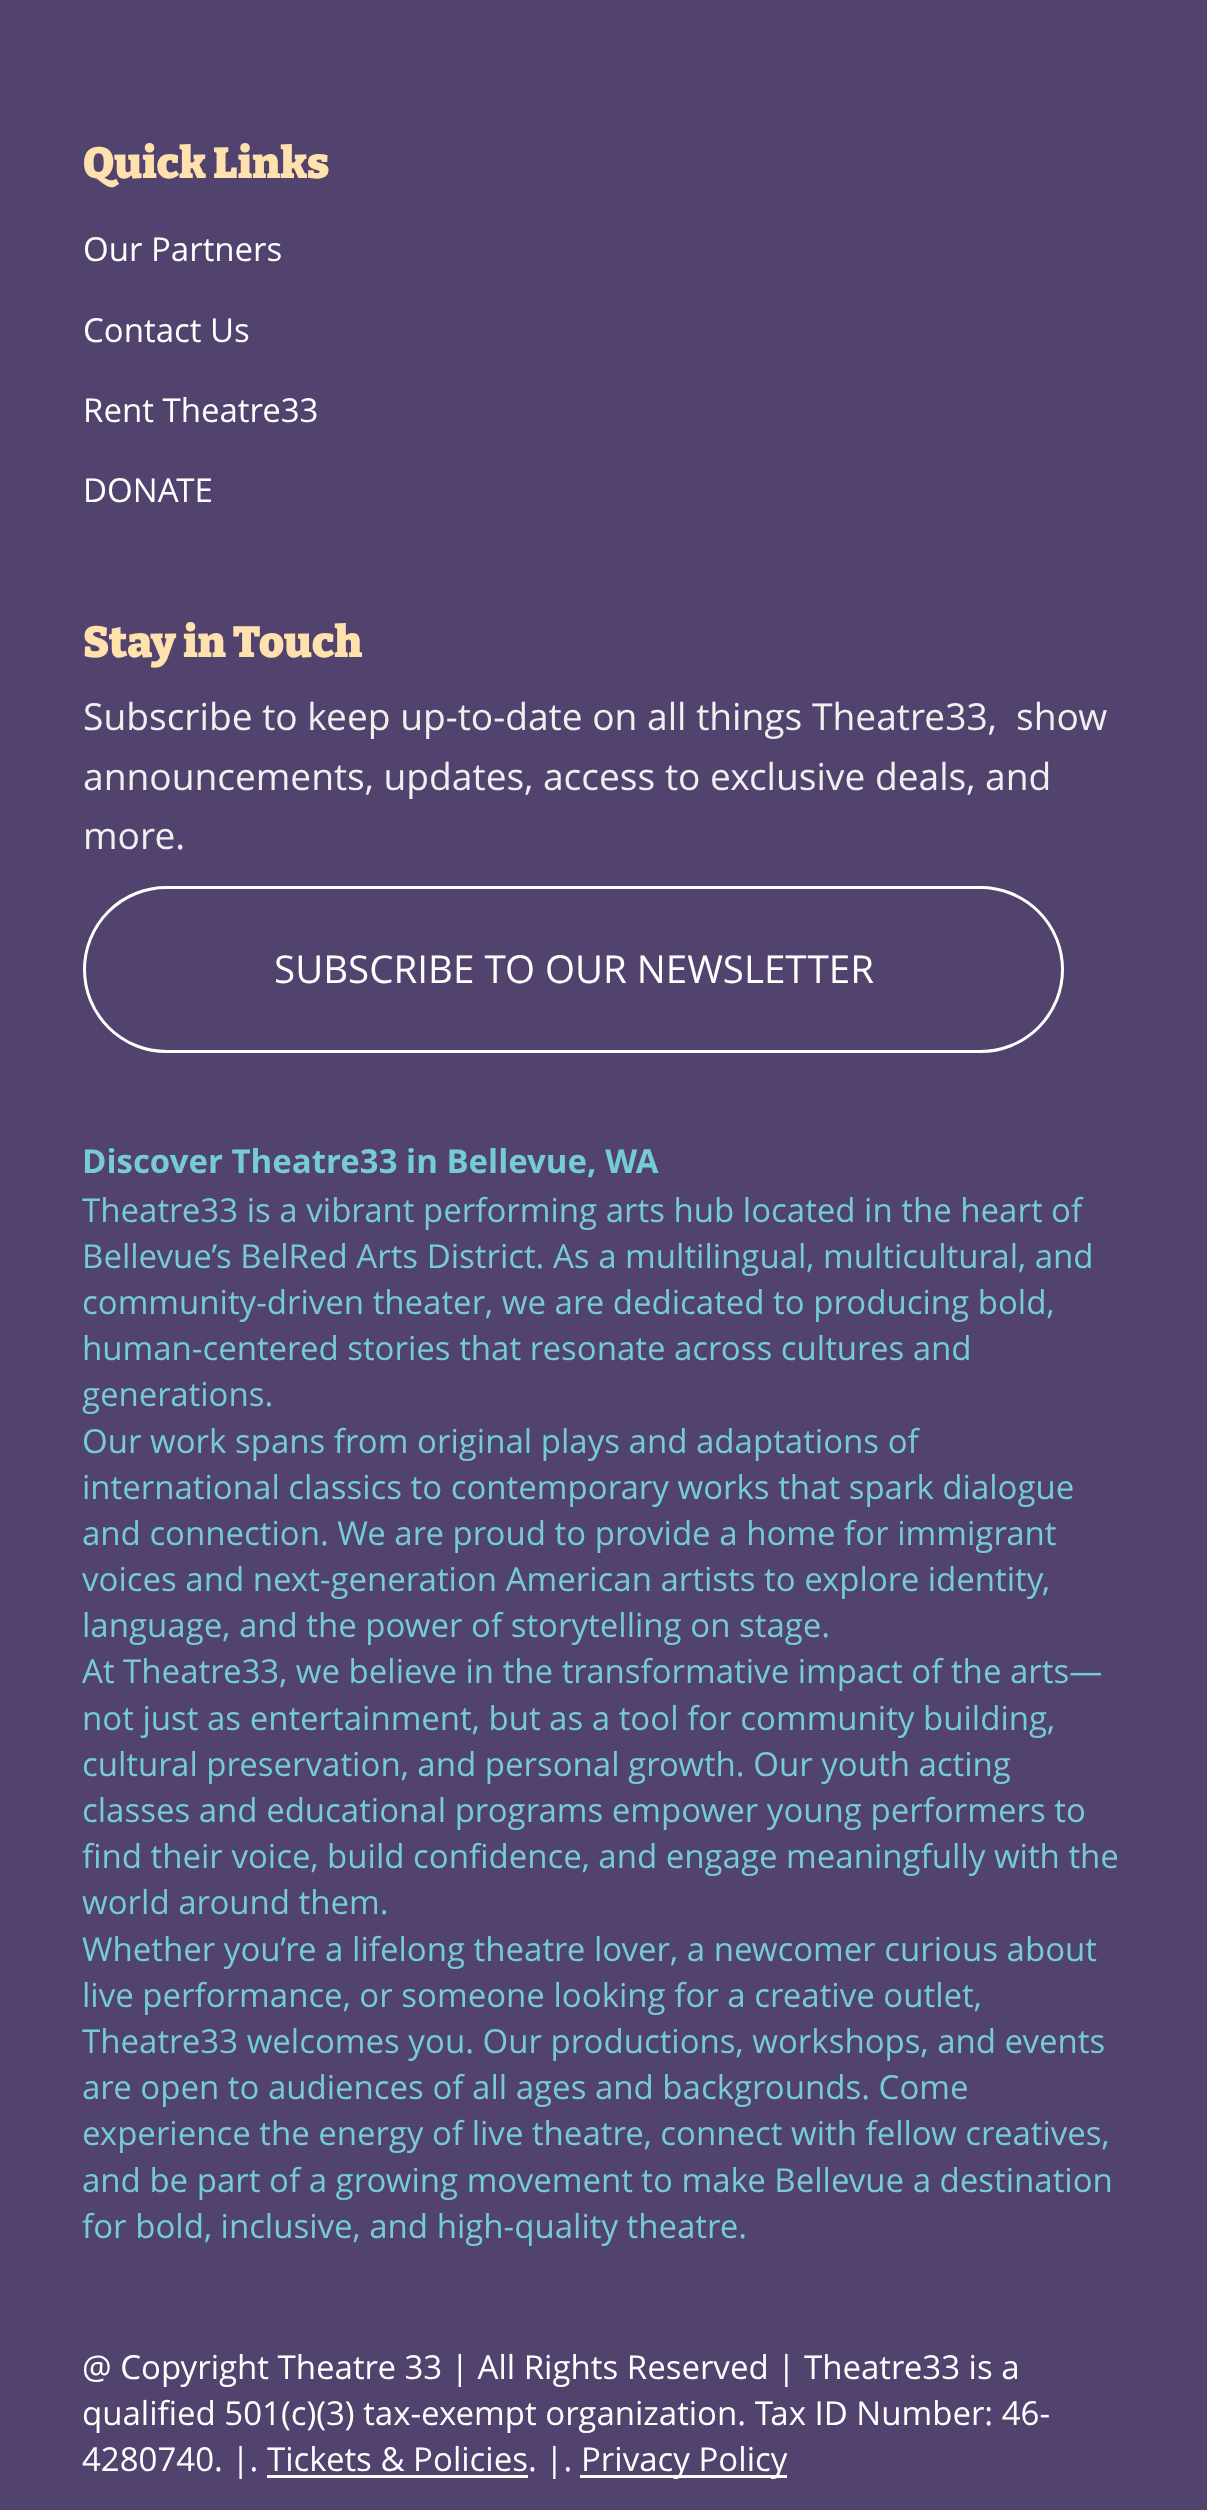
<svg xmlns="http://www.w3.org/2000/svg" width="1207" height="2510">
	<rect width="100%" height="100%" fill="#51436D" />
	<text x="83" y="178" font-family="Bitter" font-size="43.25" font-weight="900" fill="#FFE1AD">Quick Links</text>
	<g font-family="Open Sans" font-size="33" fill="#FFFFFF">
		<text x="83" y="261">Our Partners</text>
		<text x="83" y="342">Contact Us</text>
		<text x="83" y="422">Rent Theatre33</text>
		<text x="83" y="502">DONATE</text>
	</g>
	<text x="83" y="657" font-family="Bitter" font-size="43.25" font-weight="900" fill="#FFE1AD">Stay in Touch</text>
	<g font-family="Open Sans" font-size="37.15" fill="#F0F0F0">
		<text x="83" y="730" xml:space="preserve">Subscribe to keep up-to-date on all things Theatre33,  show</text>
		<text x="83" y="790">announcements, updates, access to exclusive deals, and</text>
		<text x="83" y="849">more.</text>
	</g>
	<rect x="84.5" y="887.5" width="978" height="164" rx="82" fill="none" stroke="#FFFFFF" stroke-width="3" />
	<text x="274" y="983" font-family="Open Sans" font-size="38.5" fill="#FFFFFF">SUBSCRIBE TO OUR NEWSLETTER</text>
	<text x="82" y="1173" font-family="Open Sans" font-size="33" font-weight="700" fill="#75CCD3">Discover Theatre33 in Bellevue, WA</text>
	<g font-family="Open Sans" font-size="33" fill="#75CCD3">
		<text x="82" y="1222">Theatre33 is a vibrant performing arts hub located in the heart of</text>
		<text x="82" y="1268">Bellevue’s BelRed Arts District. As a multilingual, multicultural, and</text>
		<text x="82" y="1314">community-driven theater, we are dedicated to producing bold,</text>
		<text x="82" y="1360">human-centered stories that resonate across cultures and</text>
		<text x="82" y="1406">generations.</text>
		<text x="82" y="1453">Our work spans from original plays and adaptations of</text>
		<text x="82" y="1499">international classics to contemporary works that spark dialogue</text>
		<text x="82" y="1545">and connection. We are proud to provide a home for immigrant</text>
		<text x="82" y="1591">voices and next-generation American artists to explore identity,</text>
		<text x="82" y="1637">language, and the power of storytelling on stage.</text>
		<text x="82" y="1683">At Theatre33, we believe in the transformative impact of the arts—</text>
		<text x="82" y="1730">not just as entertainment, but as a tool for community building,</text>
		<text x="82" y="1776">cultural preservation, and personal growth. Our youth acting</text>
		<text x="82" y="1822">classes and educational programs empower young performers to</text>
		<text x="82" y="1868">find their voice, build confidence, and engage meaningfully with the</text>
		<text x="82" y="1914">world around them.</text>
		<text x="82" y="1961">Whether you’re a lifelong theatre lover, a newcomer curious about</text>
		<text x="82" y="2007">live performance, or someone looking for a creative outlet,</text>
		<text x="82" y="2053">Theatre33 welcomes you. Our productions, workshops, and events</text>
		<text x="82" y="2099">are open to audiences of all ages and backgrounds. Come</text>
		<text x="82" y="2145">experience the energy of live theatre, connect with fellow creatives,</text>
		<text x="82" y="2192">and be part of a growing movement to make Bellevue a destination</text>
		<text x="82" y="2238">for bold, inclusive, and high-quality theatre.</text>
	</g>
	<g font-family="Open Sans" font-size="33" fill="#FFFFFF">
		<text x="82" y="2379">@ Copyright Theatre 33 | All Rights Reserved | Theatre33 is a</text>
		<text x="82" y="2425">qualified 501(c)(3) tax-exempt organization. Tax ID Number: 46-</text>
		<text x="82" y="2471">4280740. |. Tickets &amp; Policies. |.</text>
	</g>
	<rect x="267" y="2475" width="261" height="3" fill="#FFFFFF" />
	<rect x="580" y="2475" width="207" height="3" fill="#FFFFFF" />
	<text x="581" y="2471" font-family="Open Sans" font-size="33" fill="#FFFFFF">Privacy Policy</text>
</svg>
